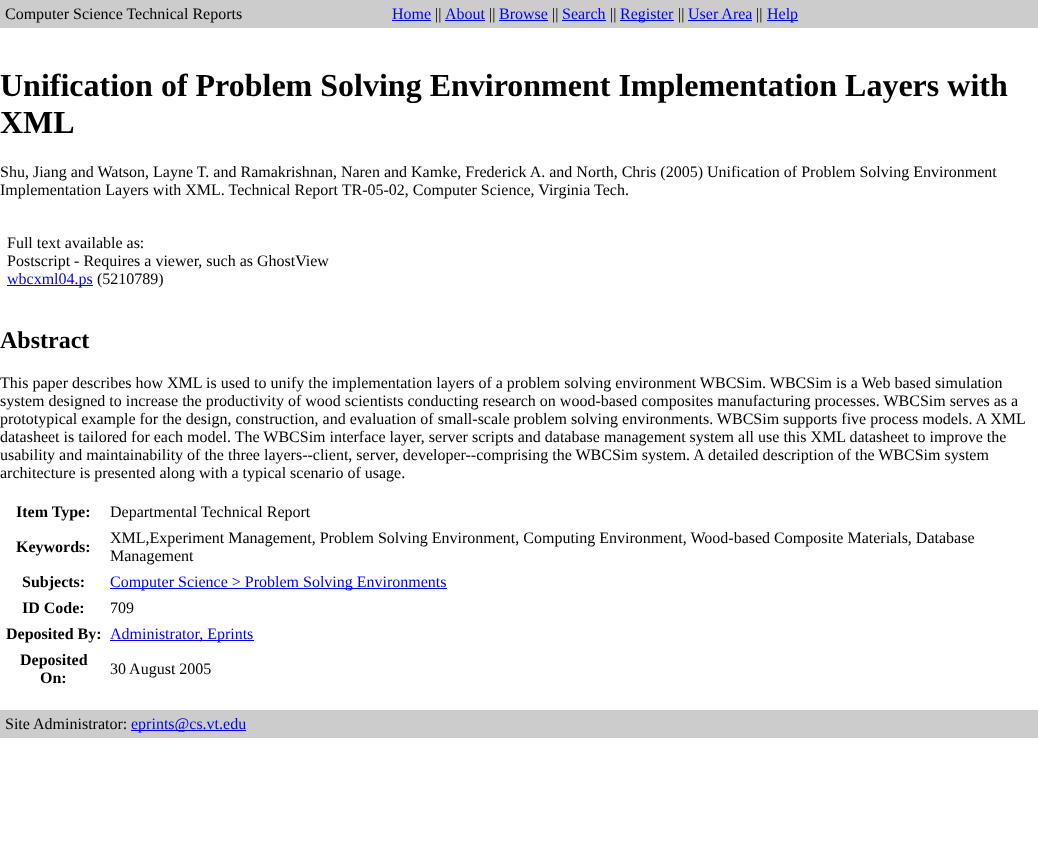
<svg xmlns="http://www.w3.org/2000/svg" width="1038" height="858">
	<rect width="100%" height="100%" fill="#FFFFFF" />
	<rect x="0" y="0" width="1038" height="28" fill="#CCCCCC" />
	<text x="5" y="19" font-family="Liberation Serif" font-size="16" fill="#000000">Computer Science Technical Reports</text>
	<text x="392" y="19" font-family="Liberation Serif" font-size="16" fill="#0000EE">Home</text>
	<rect x="392" y="20" width="39" height="1" fill="#0000EE" />
	<text x="435" y="19" font-family="Liberation Serif" font-size="16" fill="#000000">||</text>
	<text x="445" y="19" font-family="Liberation Serif" font-size="16" fill="#0000EE">About</text>
	<rect x="445" y="20" width="40" height="1" fill="#0000EE" />
	<text x="489" y="19" font-family="Liberation Serif" font-size="16" fill="#000000">||</text>
	<text x="499" y="19" font-family="Liberation Serif" font-size="16" fill="#0000EE">Browse</text>
	<rect x="499" y="20" width="49" height="1" fill="#0000EE" />
	<text x="552" y="19" font-family="Liberation Serif" font-size="16" fill="#000000">||</text>
	<text x="562" y="19" font-family="Liberation Serif" font-size="16" fill="#0000EE">Search</text>
	<rect x="562" y="20" width="44" height="1" fill="#0000EE" />
	<text x="610" y="19" font-family="Liberation Serif" font-size="16" fill="#000000">||</text>
	<rect x="620" y="20" width="54" height="1" fill="#0000EE" />
	<text x="620" y="19" font-family="Liberation Serif" font-size="16" fill="#0000EE">Register</text>
	<text x="678" y="19" font-family="Liberation Serif" font-size="16" fill="#000000">||</text>
	<text x="688" y="19" font-family="Liberation Serif" font-size="16" fill="#0000EE">User Area</text>
	<rect x="688" y="20" width="64" height="1" fill="#0000EE" />
	<text x="756" y="19" font-family="Liberation Serif" font-size="16" fill="#000000">||</text>
	<rect x="767" y="20" width="31" height="1" fill="#0000EE" />
	<text x="767" y="19" font-family="Liberation Serif" font-size="16" fill="#0000EE">Help</text>
	<g font-family="Liberation Serif" font-size="32" font-weight="700" fill="#000000">
		<text x="0" y="96">Unification of Problem Solving Environment Implementation Layers with</text>
		<text x="0" y="133">XML</text>
	</g>
	<g font-family="Liberation Serif" font-size="16" fill="#000000">
		<text x="0" y="177">Shu, Jiang and Watson, Layne T. and Ramakrishnan, Naren and Kamke, Frederick A. and North, Chris (2005) Unification of Problem Solving Environment</text>
		<text x="0" y="195">Implementation Layers with XML. Technical Report TR-05-02, Computer Science, Virginia Tech.</text>
		<text x="7" y="248">Full text available as:</text>
		<text x="7" y="266">Postscript - Requires a viewer, such as GhostView</text>
	</g>
	<rect x="7" y="285" width="86" height="1" fill="#0000EE" />
	<text x="7" y="284" font-family="Liberation Serif" font-size="16" fill="#0000EE">wbcxml04.ps</text>
	<text x="97" y="284" font-family="Liberation Serif" font-size="16" fill="#000000">(5210789)</text>
	<text x="0" y="348" font-family="Liberation Serif" font-size="24" font-weight="700" fill="#000000">Abstract</text>
	<g font-family="Liberation Serif" font-size="16" fill="#000000">
		<text x="0" y="388">This paper describes how XML is used to unify the implementation layers of a problem solving environment WBCSim. WBCSim is a Web based simulation</text>
		<text x="0" y="406">system designed to increase the productivity of wood scientists conducting research on wood-based composites manufacturing processes. WBCSim serves as a</text>
		<text x="0" y="424">prototypical example for the design, construction, and evaluation of small-scale problem solving environments. WBCSim supports five process models. A XML</text>
		<text x="0" y="442">datasheet is tailored for each model. The WBCSim interface layer, server scripts and database management system all use this XML datasheet to improve the</text>
		<text x="0" y="460">usability and maintainability of the three layers--client, server, developer--comprising the WBCSim system. A detailed description of the WBCSim system</text>
		<text x="0" y="478">architecture is presented along with a typical scenario of usage.</text>
	</g>
	<text x="16" y="517" font-family="Liberation Serif" font-size="16" font-weight="700" fill="#000000">Item Type:</text>
	<text x="110" y="517" font-family="Liberation Serif" font-size="16" fill="#000000">Departmental Technical Report</text>
	<text x="16" y="552" font-family="Liberation Serif" font-size="16" font-weight="700" fill="#000000">Keywords:</text>
	<g font-family="Liberation Serif" font-size="16" fill="#000000">
		<text x="110" y="543">XML,Experiment Management, Problem Solving Environment, Computing Environment, Wood-based Composite Materials, Database</text>
		<text x="110" y="561">Management</text>
	</g>
	<text x="22" y="587" font-family="Liberation Serif" font-size="16" font-weight="700" fill="#000000">Subjects:</text>
	<rect x="110" y="588" width="337" height="1" fill="#0000EE" />
	<text x="110" y="587" font-family="Liberation Serif" font-size="16" fill="#0000EE">Computer Science &gt; Problem Solving Environments</text>
	<text x="22" y="613" font-family="Liberation Serif" font-size="16" font-weight="700" fill="#000000">ID Code:</text>
	<text x="110" y="613" font-family="Liberation Serif" font-size="16" fill="#000000">709</text>
	<text x="6" y="639" font-family="Liberation Serif" font-size="16" font-weight="700" fill="#000000">Deposited By:</text>
	<rect x="110" y="640" width="144" height="1" fill="#0000EE" />
	<text x="110" y="639" font-family="Liberation Serif" font-size="16" fill="#0000EE">Administrator, Eprints</text>
	<g font-family="Liberation Serif" font-size="16" font-weight="700" fill="#000000">
		<text x="20" y="665">Deposited</text>
		<text x="40" y="683">On:</text>
	</g>
	<text x="110" y="674" font-family="Liberation Serif" font-size="16" fill="#000000">30 August 2005</text>
	<rect x="0" y="710" width="1038" height="28" fill="#CCCCCC" />
	<text x="5" y="729" font-family="Liberation Serif" font-size="16" fill="#000000">Site Administrator:</text>
	<rect x="131" y="730" width="115" height="1" fill="#0000EE" />
	<text x="131" y="729" font-family="Liberation Serif" font-size="16" fill="#0000EE">eprints@cs.vt.edu</text>
</svg>
